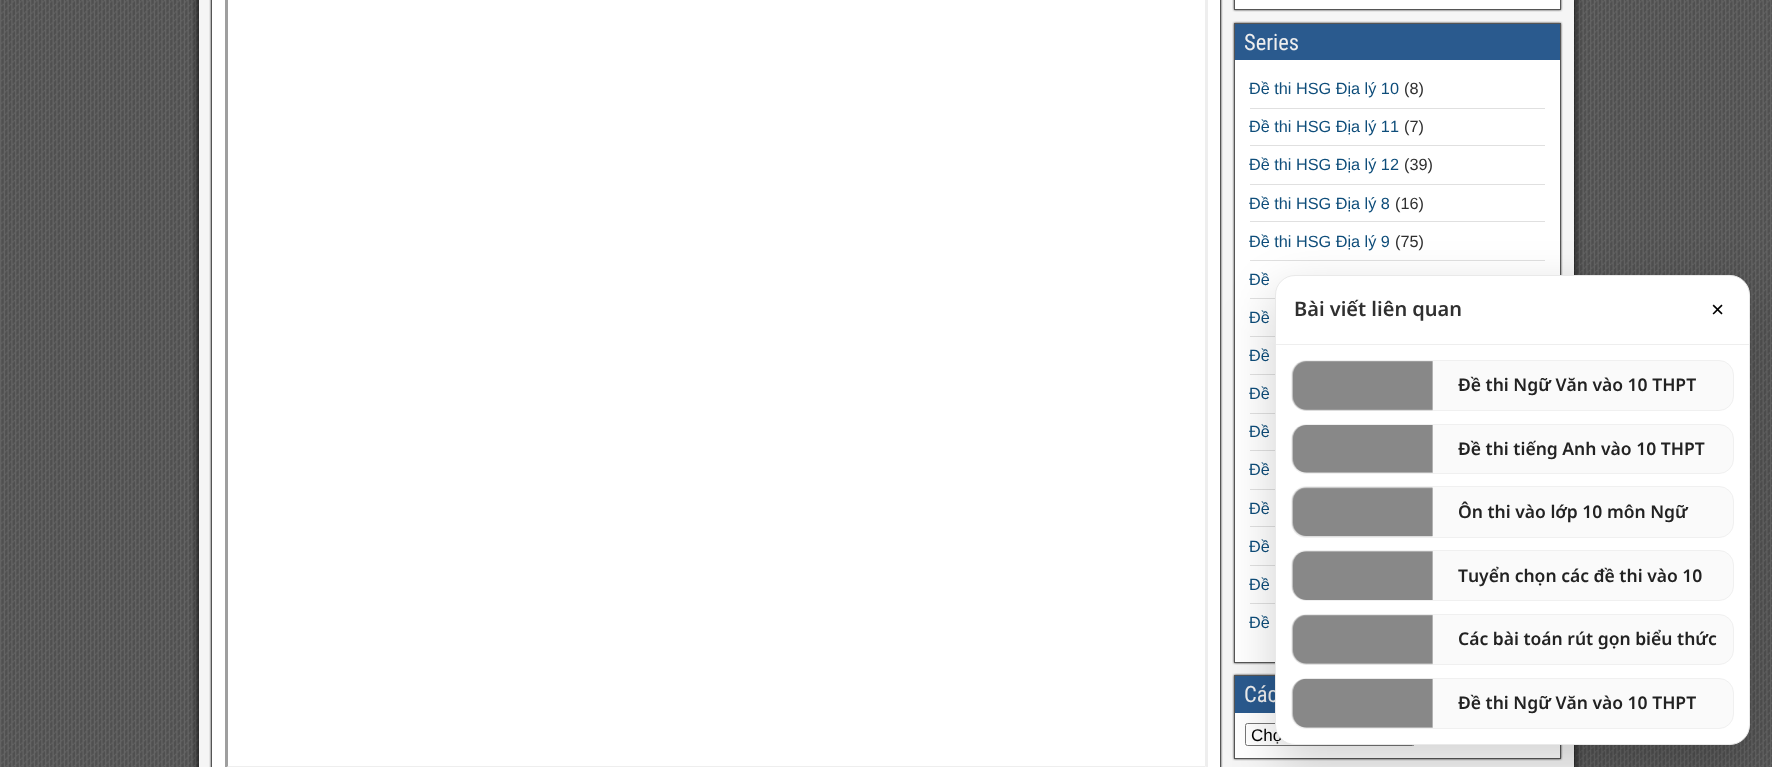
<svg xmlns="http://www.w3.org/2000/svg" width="1772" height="767">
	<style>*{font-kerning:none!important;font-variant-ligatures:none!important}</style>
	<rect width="100%" height="100%" fill="#505050" />
	<image x="0" y="0" width="1772" height="767" href="assets/img1.png" />
	<rect x="199" y="-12" width="1375" height="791" fill="#000000" filter="blur(4px)" />
	<rect x="199" y="0" width="1375" height="767" fill="#F5F5F5" />
	<rect x="211" y="-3" width="1010" height="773" fill="#333333" filter="blur(1px)" />
	<rect x="211.5" y="-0.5" width="1009" height="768" fill="#FFFFFF" stroke="#555555" />
	<path d="M1208-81V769L1205 766V-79Z" fill="#EEEEEE" />
	<path d="M1208 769H225L228 766H1205Z" fill="#EEEEEE" />
	<path d="M225 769V-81L228-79V766Z" fill="#9F9F9F" />
	<rect x="1234" y="-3" width="327" height="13" fill="#333333" filter="blur(1px)" />
	<rect x="1234.5" y="-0.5" width="326" height="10" fill="#FFFFFF" stroke="#555555" />
	<rect x="1234" y="23" width="327" height="640" fill="#333333" filter="blur(1px)" />
	<rect x="1235" y="60" width="325" height="602" fill="#FFFFFF" />
	<rect x="1234.5" y="23.5" width="326" height="639" fill="none" stroke="#555555" />
	<rect x="1235" y="24" width="325" height="36" fill="#2A5A8E" />
	<text x="1244" y="50" font-family="Roboto Condensed" font-size="22.5" fill="#EEEEEE">Series</text>
	<rect x="1250" y="108" width="295" height="1" fill="#E0E0E0" />
	<text x="1249" y="94" font-family="Liberation Sans" font-size="16.25" fill="#0E4D7A">Đề thi HSG Địa lý 10</text>
	<text x="1404" y="94" font-family="Liberation Sans" font-size="16.25" fill="#303030">(8)</text>
	<rect x="1250" y="145" width="295" height="1" fill="#E0E0E0" />
	<text x="1249" y="132" font-family="Liberation Sans" font-size="16.25" fill="#0E4D7A">Đề thi HSG Địa lý 11</text>
	<text x="1404" y="132" font-family="Liberation Sans" font-size="16.25" fill="#303030">(7)</text>
	<rect x="1250" y="184" width="295" height="1" fill="#E0E0E0" />
	<text x="1249" y="170" font-family="Liberation Sans" font-size="16.25" fill="#0E4D7A">Đề thi HSG Địa lý 12</text>
	<text x="1404" y="170" font-family="Liberation Sans" font-size="16.25" fill="#303030">(39)</text>
	<rect x="1250" y="221" width="295" height="1" fill="#E0E0E0" />
	<text x="1249" y="209" font-family="Liberation Sans" font-size="16.25" fill="#0E4D7A">Đề thi HSG Địa lý 8</text>
	<text x="1395" y="209" font-family="Liberation Sans" font-size="16.25" fill="#303030">(16)</text>
	<rect x="1250" y="260" width="295" height="1" fill="#E0E0E0" />
	<text x="1249" y="247" font-family="Liberation Sans" font-size="16.25" fill="#0E4D7A">Đề thi HSG Địa lý 9</text>
	<text x="1395" y="247" font-family="Liberation Sans" font-size="16.25" fill="#303030">(75)</text>
	<rect x="1250" y="298" width="25" height="1" fill="#E0E0E0" />
	<text x="1249" y="285" font-family="Liberation Sans" font-size="16.25" fill="#0E4D7A">Đề</text>
	<rect x="1250" y="336" width="25" height="1" fill="#E0E0E0" />
	<text x="1249" y="323" font-family="Liberation Sans" font-size="16.25" fill="#0E4D7A">Đề</text>
	<rect x="1250" y="374" width="25" height="1" fill="#E0E0E0" />
	<text x="1249" y="361" font-family="Liberation Sans" font-size="16.25" fill="#0E4D7A">Đề</text>
	<rect x="1250" y="413" width="25" height="1" fill="#E0E0E0" />
	<text x="1249" y="399" font-family="Liberation Sans" font-size="16.25" fill="#0E4D7A">Đề</text>
	<rect x="1250" y="450" width="25" height="1" fill="#E0E0E0" />
	<text x="1249" y="437" font-family="Liberation Sans" font-size="16.25" fill="#0E4D7A">Đề</text>
	<rect x="1250" y="489" width="25" height="1" fill="#E0E0E0" />
	<text x="1249" y="475" font-family="Liberation Sans" font-size="16.25" fill="#0E4D7A">Đề</text>
	<rect x="1250" y="526" width="25" height="1" fill="#E0E0E0" />
	<text x="1249" y="514" font-family="Liberation Sans" font-size="16.25" fill="#0E4D7A">Đề</text>
	<rect x="1250" y="565" width="25" height="1" fill="#E0E0E0" />
	<text x="1249" y="552" font-family="Liberation Sans" font-size="16.25" fill="#0E4D7A">Đề</text>
	<rect x="1250" y="603" width="25" height="1" fill="#E0E0E0" />
	<g font-family="Liberation Sans" font-size="16.25" fill="#0E4D7A">
		<text x="1249" y="590">Đề</text>
		<text x="1249" y="628">Đề</text>
	</g>
	<rect x="1234" y="675" width="327" height="84" fill="#333333" filter="blur(1px)" />
	<rect x="1235" y="713" width="325" height="45" fill="#FFFFFF" />
	<rect x="1234.5" y="675.5" width="326" height="83" fill="none" stroke="#555555" />
	<rect x="1235" y="676" width="40" height="37" fill="#2A5A8E" />
	<text x="1244" y="702" font-family="Roboto Condensed" font-size="22.5" fill="#EEEEEE">Các</text>
	<rect x="1245.5" y="723.5" width="169" height="22" rx="2" fill="none" stroke="#767676" />
	<text x="1251" y="741" font-family="Liberation Sans" font-size="17" fill="#000000">Chọ</text>
	<rect x="1275" y="293" width="475" height="470" rx="20" fill="#000000" fill-opacity="0.18" filter="blur(25px)" />
	<rect x="1275.5" y="275.5" width="474" height="469" rx="19.5" fill="#FFFFFF" stroke="#E9E9E9" />
	<rect x="1276" y="344" width="473" height="1" fill="#EEEEEE" />
	<text x="1294" y="316" font-family="Noto Sans" font-size="20" font-weight="600" fill="#303030">Bài viết liên quan</text>
	<text x="1711" y="317" font-family="Liberation Sans" font-size="22.5" fill="#000000">×</text>
	<rect x="1291.5" y="360.5" width="442" height="50" rx="14.5" fill="#FAFAFA" stroke="#F0F0F0" />
	<path d="M1307 361H1433V410H1307C1299.5 410 1293 403.5 1293 396V375C1293 367.5 1299.5 361 1307 361Z" fill="#DDDDDD" />
	<image x="1292" y="361" width="141" height="50" href="assets/img2.png" />
	<text x="1458" y="391" font-family="Noto Sans" font-size="17.5" font-weight="600" fill="#222222">Đề thi Ngữ Văn vào 10 THPT</text>
	<rect x="1291.5" y="424.5" width="442" height="49" rx="14.5" fill="#FAFAFA" stroke="#F0F0F0" />
	<path d="M1307 425H1433V473H1307C1299.5 473 1293 466.5 1293 459V439C1293 431.5 1299.5 425 1307 425Z" fill="#DDDDDD" />
	<image x="1292" y="425" width="141" height="48" href="assets/img3.png" />
	<text x="1458" y="455" font-family="Noto Sans" font-size="17.5" font-weight="600" fill="#222222">Đề thi tiếng Anh vào 10 THPT</text>
	<rect x="1291.5" y="486.5" width="442" height="51" rx="14.5" fill="#FAFAFA" stroke="#F0F0F0" />
	<path d="M1307 488H1433V536H1307C1299.5 536 1293 529.5 1293 522V502C1293 494.5 1299.5 488 1307 488Z" fill="#DDDDDD" />
	<image x="1292" y="487" width="141" height="50" href="assets/img4.png" />
	<text x="1458" y="518" font-family="Noto Sans" font-size="17.5" font-weight="600" fill="#222222">Ôn thi vào lớp 10 môn Ngữ</text>
	<rect x="1291.5" y="550.5" width="442" height="50" rx="14.5" fill="#FAFAFA" stroke="#F0F0F0" />
	<path d="M1307 551H1433V600H1307C1299.5 600 1293 593.5 1293 586V565C1293 557.5 1299.5 551 1307 551Z" fill="#DDDDDD" />
	<image x="1292" y="551" width="141" height="49" href="assets/img5.png" />
	<text x="1458" y="582" font-family="Noto Sans" font-size="17.5" font-weight="600" fill="#222222">Tuyển chọn các đề thi vào 10</text>
	<rect x="1291.5" y="614.5" width="442" height="50" rx="14.5" fill="#FAFAFA" stroke="#F0F0F0" />
	<path d="M1307 615H1433V664H1307C1299.5 664 1293 657.5 1293 650V629C1293 621.5 1299.5 615 1307 615Z" fill="#DDDDDD" />
	<image x="1292" y="614" width="141" height="51" href="assets/img6.png" />
	<text x="1458" y="645" font-family="Noto Sans" font-size="17.5" font-weight="600" fill="#222222">Các bài toán rút gọn biểu thức</text>
	<rect x="1291.5" y="678.5" width="442" height="50" rx="14.5" fill="#FAFAFA" stroke="#F0F0F0" />
	<path d="M1307 679H1433V728H1307C1299.5 728 1293 721.5 1293 714V693C1293 685.5 1299.5 679 1307 679Z" fill="#DDDDDD" />
	<image x="1292" y="678" width="141" height="50" href="assets/img7.png" />
	<text x="1458" y="709" font-family="Noto Sans" font-size="17.5" font-weight="600" fill="#222222">Đề thi Ngữ Văn vào 10 THPT</text>
</svg>
